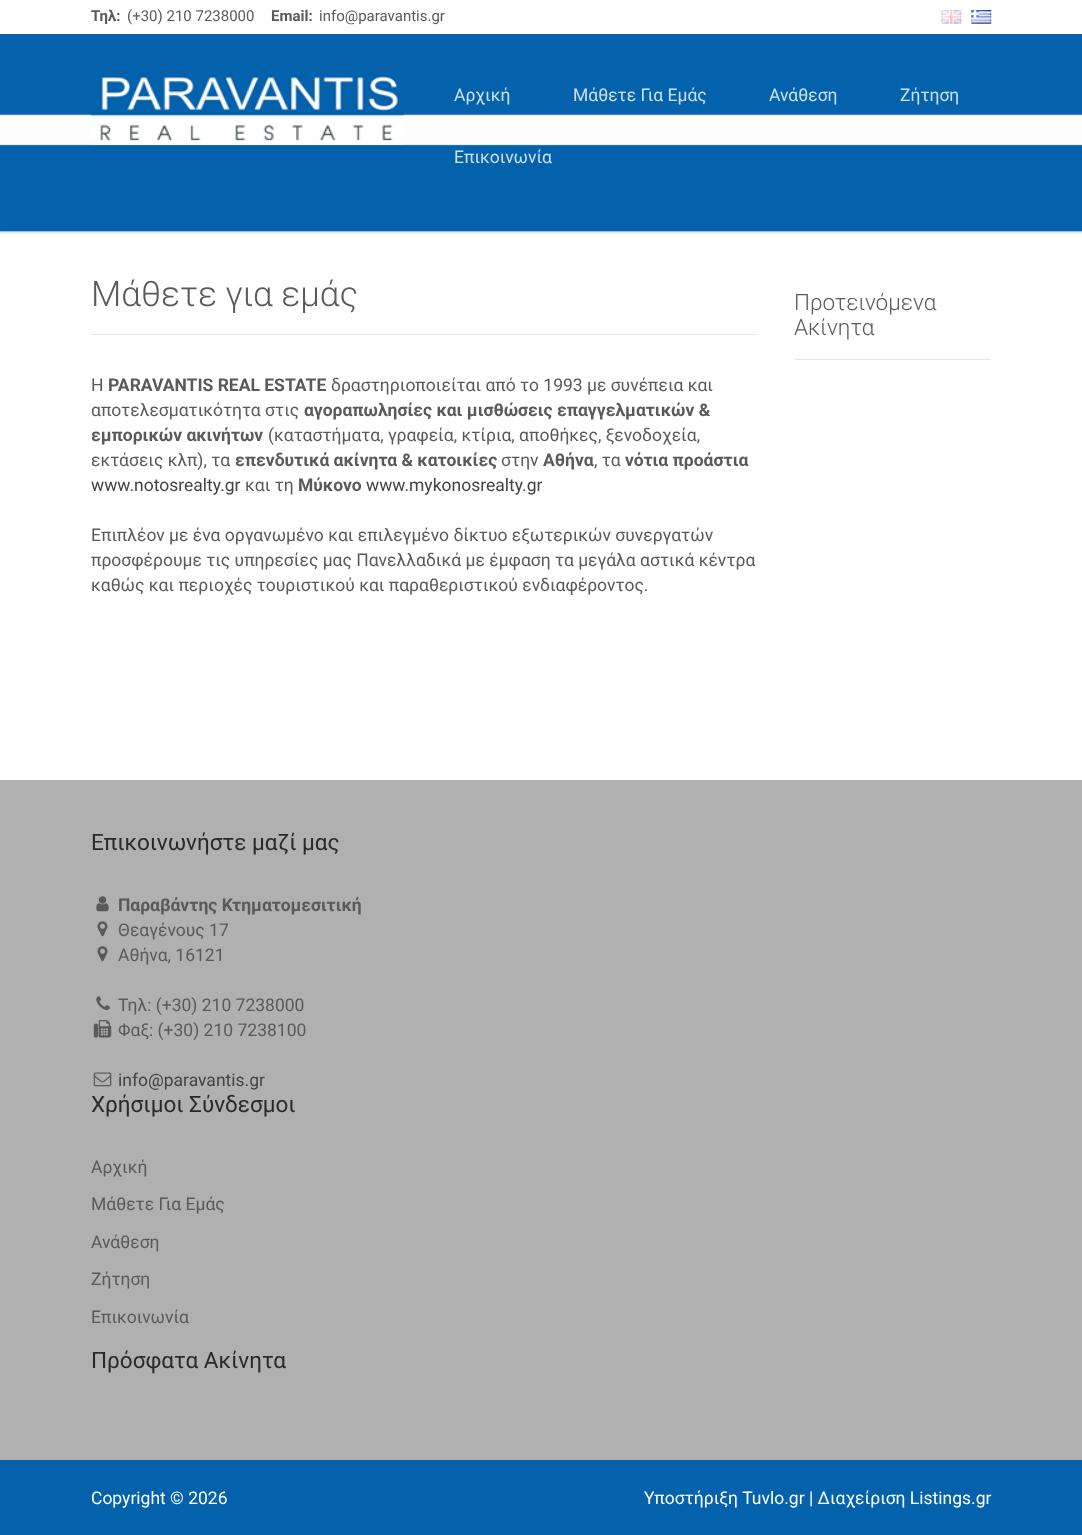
<svg xmlns="http://www.w3.org/2000/svg" width="1082" height="1535">
	<rect width="100%" height="100%" fill="#FFFFFF" />
	<rect x="0" y="1" width="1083" height="232" fill="#000000" fill-opacity="0.15" filter="blur(1px)" />
	<rect x="0" y="34" width="1082" height="183" fill="#0462AC" />
	<image x="0" y="112" width="1082" height="120" href="assets/img1.png" />
	<rect x="0" y="0" width="1082" height="34" fill="#FFFFFF" />
	<text x="91" y="21" font-family="Roboto" font-size="15" font-weight="700" fill="#5A5A5A">Τηλ:</text>
	<text x="127" y="21" font-family="Roboto" font-size="15" fill="#5A5A5A">(+30) 210 7238000</text>
	<text x="271" y="21" font-family="Roboto" font-size="15" font-weight="700" fill="#5A5A5A">Email:</text>
	<text x="319" y="21" font-family="Roboto" font-size="15" fill="#5A5A5A">info@paravantis.gr</text>
	<image x="941" y="10" width="21" height="14" href="assets/img2.png" />
	<image x="971" y="10" width="21" height="14" href="assets/img3.png" />
	<image x="91" y="75" width="313" height="70" href="assets/img4.png" />
	<g font-family="Roboto" font-size="17.5" fill="#CDE0EE">
		<text x="454" y="101">Αρχική</text>
		<text x="573" y="101">Μάθετε Για Εμάς</text>
		<text x="769" y="101">Ανάθεση</text>
		<text x="900" y="101">Ζήτηση</text>
		<text x="454" y="163">Επικοινωνία</text>
	</g>
	<rect x="91" y="334" width="667" height="1" fill="#E6E6E6" />
	<text x="91" y="306" font-family="Roboto" font-size="35" font-weight="300" fill="#5A5A5A">Μάθετε για εμάς</text>
	<text x="91" y="391" font-family="Roboto" font-size="17.5" fill="#5A5A5A">Η</text>
	<text x="108" y="391" font-family="Roboto" font-size="17.5" font-weight="700" fill="#5A5A5A">PARAVANTIS REAL ESTATE</text>
	<g font-family="Roboto" font-size="17.5" fill="#5A5A5A">
		<text x="331" y="391">δραστηριοποιείται από το 1993 με συνέπεια και</text>
		<text x="91" y="416">αποτελεσματικότητα στις</text>
	</g>
	<g font-family="Roboto" font-size="17.5" font-weight="700" fill="#5A5A5A">
		<text x="304" y="416">αγοραπωλησίες και μισθώσεις επαγγελματικών &amp;</text>
		<text x="91" y="441">εμπορικών ακινήτων</text>
	</g>
	<g font-family="Roboto" font-size="17.5" fill="#5A5A5A">
		<text x="268" y="441">(καταστήματα, γραφεία, κτίρια, αποθήκες, ξενοδοχεία,</text>
		<text x="91" y="466">εκτάσεις κλπ), τα</text>
	</g>
	<text x="235" y="466" font-family="Roboto" font-size="17.5" font-weight="700" fill="#5A5A5A">επενδυτικά ακίνητα &amp; κατοικίες</text>
	<text x="501" y="466" font-family="Roboto" font-size="17.5" fill="#5A5A5A">στην</text>
	<text x="543" y="466" font-family="Roboto" font-size="17.5" font-weight="700" fill="#5A5A5A">Αθήνα</text>
	<text x="594" y="466" font-family="Roboto" font-size="17.5" fill="#5A5A5A">, τα</text>
	<text x="625" y="466" font-family="Roboto" font-size="17.5" font-weight="700" fill="#5A5A5A">νότια προάστια</text>
	<text x="91" y="491" font-family="Roboto" font-size="17.5" fill="#454243">www.notosrealty.gr</text>
	<text x="245" y="491" font-family="Roboto" font-size="17.5" fill="#5A5A5A">και τη</text>
	<text x="298" y="491" font-family="Roboto" font-size="17.5" font-weight="700" fill="#5A5A5A">Μύκονο</text>
	<text x="366" y="491" font-family="Roboto" font-size="17.5" fill="#454243">www.mykonosrealty.gr</text>
	<g font-family="Roboto" font-size="17.5" fill="#5A5A5A">
		<text x="91" y="541">Επιπλέον με ένα οργανωμένο και επιλεγμένο δίκτυο εξωτερικών συνεργατών</text>
		<text x="91" y="566">προσφέρουμε τις υπηρεσίες μας Πανελλαδικά με έμφαση τα μεγάλα αστικά κέντρα</text>
		<text x="91" y="591">καθώς και περιοχές τουριστικού και παραθεριστικού ενδιαφέροντος.</text>
	</g>
	<rect x="795" y="359" width="196" height="1" fill="#E6E6E6" />
	<g font-family="Roboto" font-size="22.5" font-weight="300" fill="#5A5A5A">
		<text x="794" y="310">Προτεινόμενα</text>
		<text x="794" y="335">Ακίνητα</text>
	</g>
	<rect x="0" y="780" width="1082" height="680" fill="#B0B0B0" />
	<text x="91" y="850" font-family="Roboto" font-size="22.5" fill="#2A2A2A">Επικοινωνήστε μαζί μας</text>
	<image x="96" y="896" width="13" height="16" href="assets/img5.png" />
	<text x="118" y="911" font-family="Roboto" font-size="17.5" font-weight="700" fill="#5A5A5A">Παραβάντης Κτηματομεσιτική</text>
	<image x="97" y="921" width="11" height="16" href="assets/img6.png" />
	<text x="118" y="936" font-family="Roboto" font-size="17.5" fill="#5A5A5A">Θεαγένους 17</text>
	<image x="97" y="946" width="11" height="16" href="assets/img6.png" />
	<text x="118" y="961" font-family="Roboto" font-size="17.5" fill="#5A5A5A">Αθήνα, 16121</text>
	<image x="96" y="996" width="14" height="14" href="assets/img7.png" />
	<text x="118" y="1011" font-family="Roboto" font-size="17.5" fill="#5A5A5A">Τηλ: (+30) 210 7238000</text>
	<image x="93" y="1020" width="19" height="18" href="assets/img8.png" />
	<text x="118" y="1036" font-family="Roboto" font-size="17.5" fill="#5A5A5A">Φαξ: (+30) 210 7238100</text>
	<image x="93" y="1072" width="19" height="15" href="assets/img9.png" />
	<text x="118" y="1086" font-family="Roboto" font-size="17.5" fill="#454243">info@paravantis.gr</text>
	<text x="91" y="1112" font-family="Roboto" font-size="22.5" fill="#2A2A2A">Χρήσιμοι Σύνδεσμοι</text>
	<g font-family="Roboto" font-size="17.5" fill="#5A5A5A">
		<text x="91" y="1173">Αρχική</text>
		<text x="91" y="1210">Μάθετε Για Εμάς</text>
		<text x="91" y="1248">Ανάθεση</text>
		<text x="91" y="1285">Ζήτηση</text>
		<text x="91" y="1323">Επικοινωνία</text>
	</g>
	<text x="91" y="1368" font-family="Roboto" font-size="22.5" fill="#2A2A2A">Πρόσφατα Ακίνητα</text>
	<rect x="0" y="1460" width="1082" height="75" fill="#0462AC" />
	<g font-family="Roboto" font-size="17.5" fill="#FFFFFF">
		<text x="91" y="1504">Copyright © 2026</text>
		<text x="644" y="1504">Υποστήριξη Tuvlo.gr</text>
		<text x="809" y="1504">| Διαχείριση Listings.gr</text>
	</g>
</svg>
